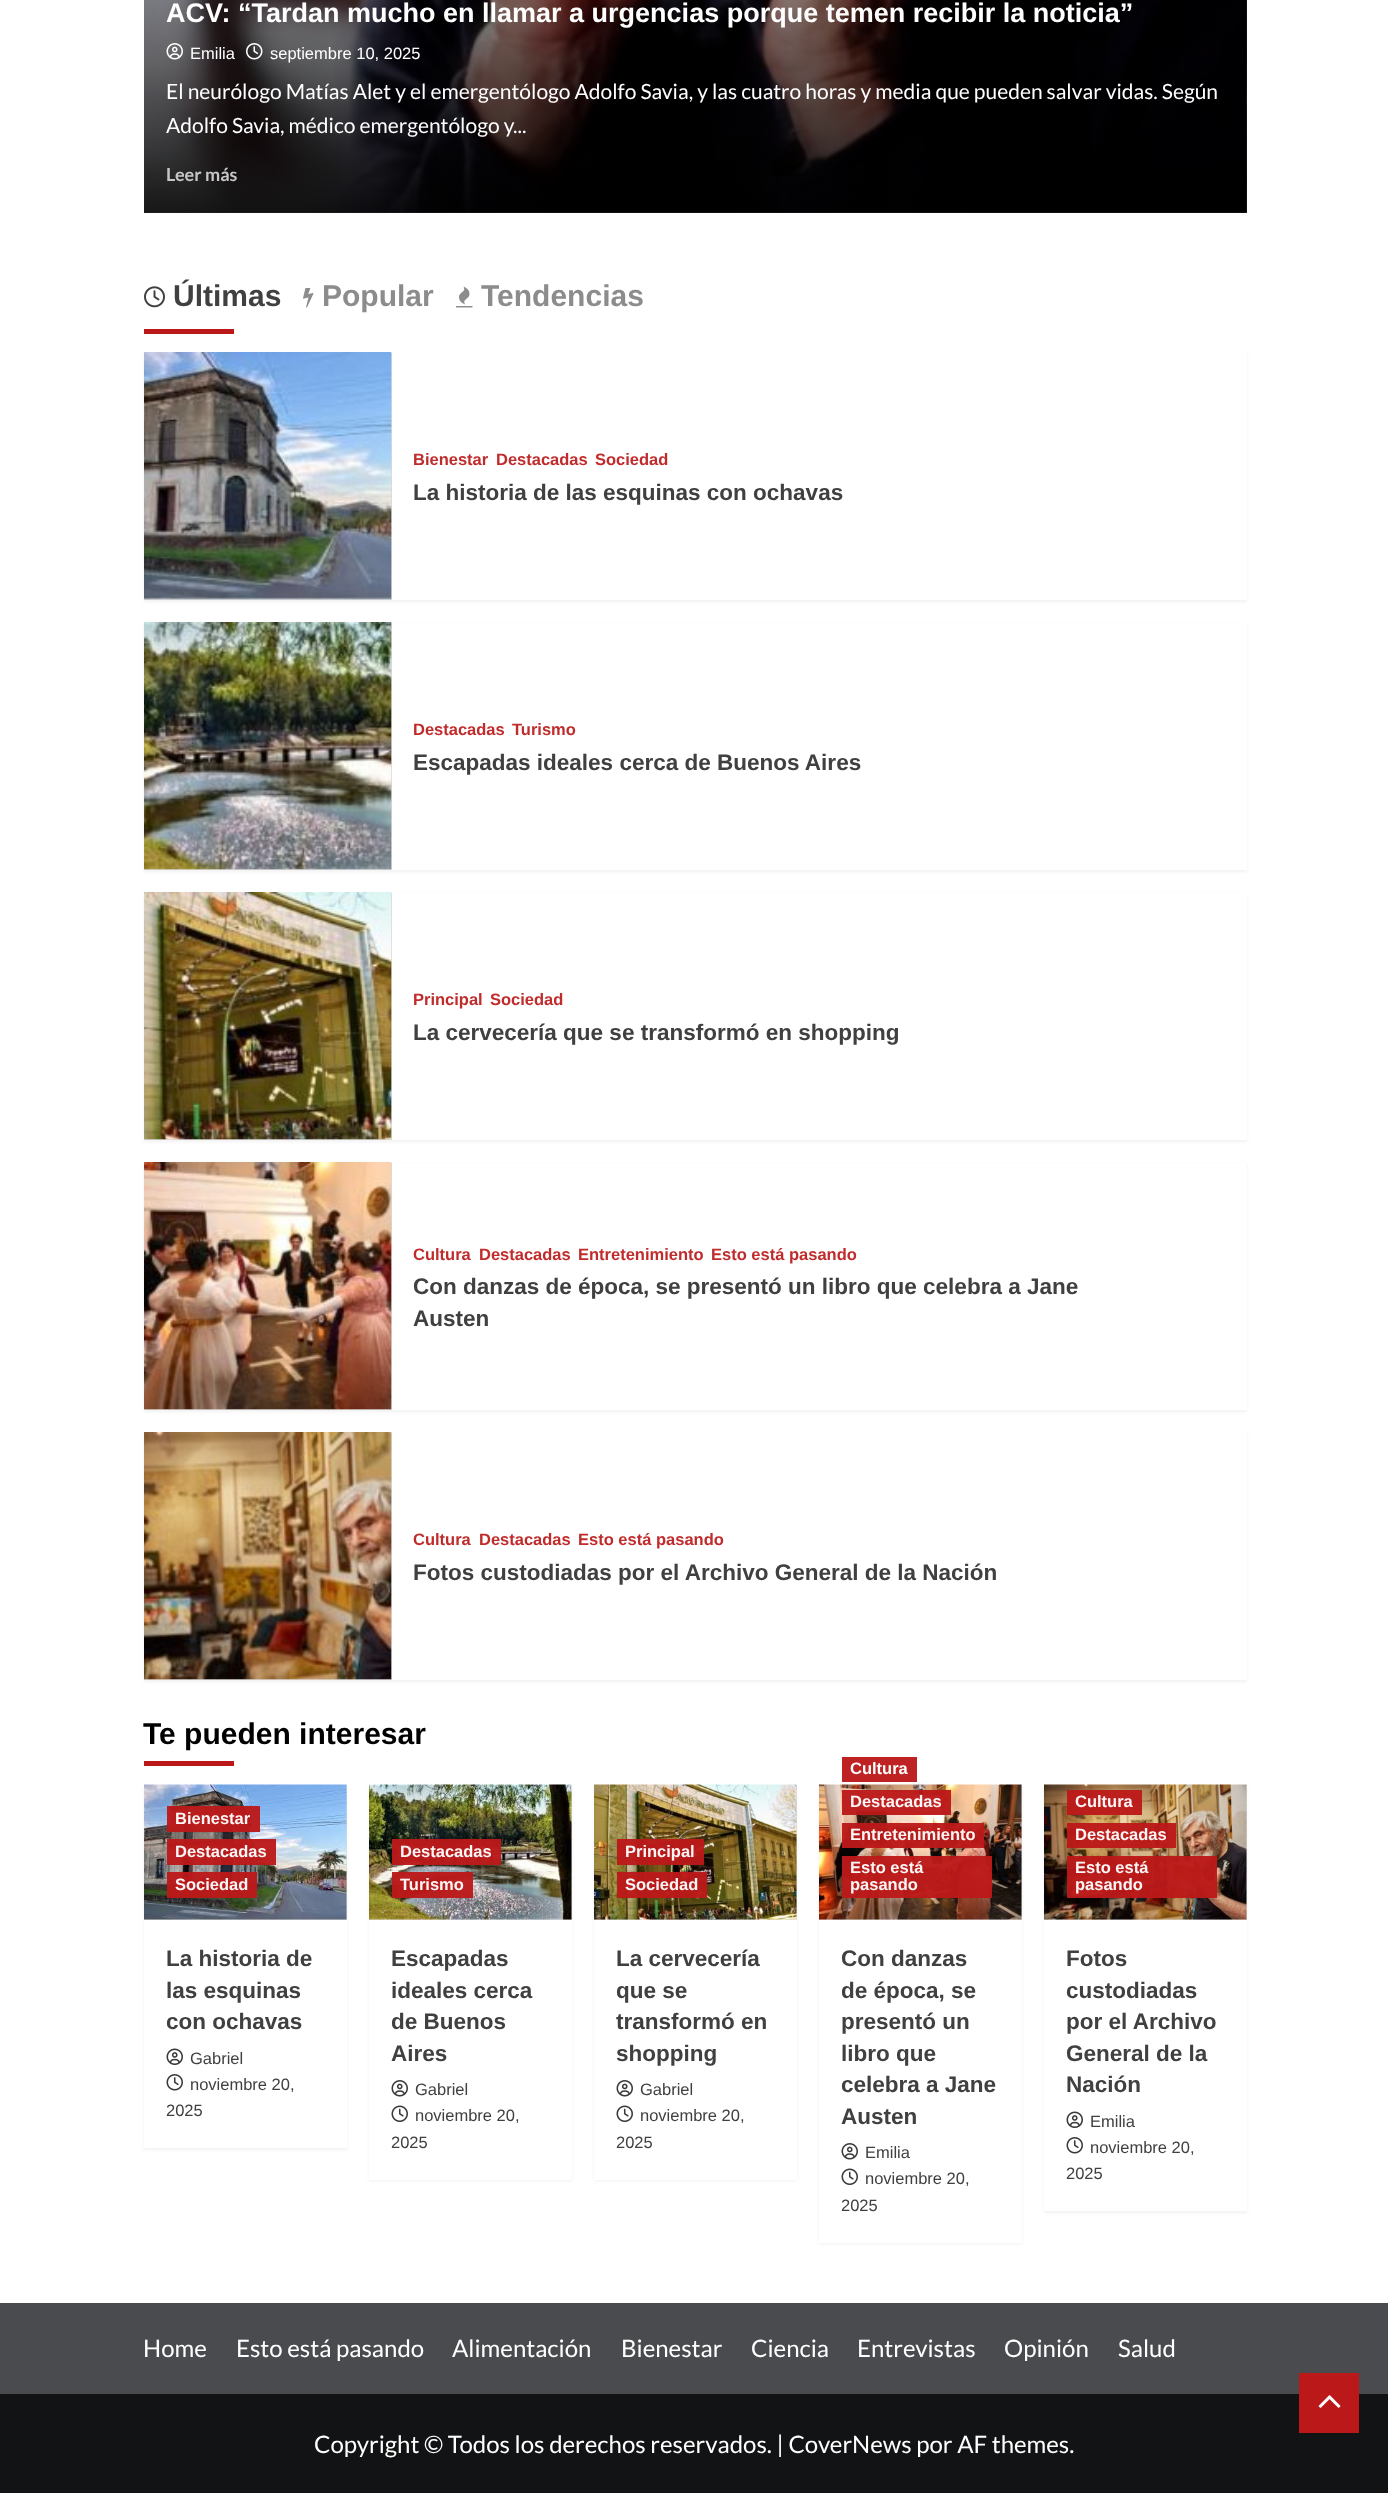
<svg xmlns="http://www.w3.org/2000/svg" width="1388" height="2493">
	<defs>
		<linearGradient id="g1" gradientUnits="userSpaceOnUse" x1="695" y1="-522" x2="695" y2="213"><stop offset="0.4" stop-color="#000000" stop-opacity="0" /><stop offset="1" stop-color="#000000" stop-opacity="0.85" /></linearGradient>
	</defs>
	<rect width="100%" height="100%" fill="#FFFFFF" />
	<rect x="144" y="0" width="1103" height="213" fill="#D8D8D8" />
	<image x="144" y="0" width="1103" height="213" href="assets/img1.png" />
	<rect x="144" y="0" width="1103" height="213" fill="url(#g1)" />
	<text x="166" y="22" font-family="Liberation Sans" font-size="27" font-weight="700" fill="#FFFFFF">ACV: “Tardan mucho en llamar a urgencias porque temen recibir la noticia”</text>
	<image x="166" y="43" width="17" height="17" href="assets/img2.png" />
	<text x="190" y="59" font-family="Liberation Sans" font-size="16.5" fill="#FFFFFF">Emilia</text>
	<image x="246" y="43" width="17" height="17" href="assets/img3.png" />
	<text x="270" y="59" font-family="Liberation Sans" font-size="16.5" fill="#FFFFFF">septiembre 10, 2025</text>
	<g font-family="Lato" font-size="21" fill="#FFFFFF">
		<text x="166" y="99">El neurólogo Matías Alet y el emergentólogo Adolfo Savia, y las cuatro horas y media que pueden salvar vidas. Según</text>
		<text x="166" y="133">Adolfo Savia, médico emergentólogo y...</text>
	</g>
	<text x="166" y="181" font-family="Lato" font-size="18" font-weight="700" fill="#C7C7C7">Leer más</text>
	<image x="1246" y="0" width="1" height="212" href="assets/img4.png" />
	<image x="144" y="286" width="21" height="22" href="assets/img5.png" />
	<text x="173" y="306" font-family="Liberation Sans" font-size="30" font-weight="700" fill="#404040">Últimas</text>
	<rect x="144" y="329" width="90" height="5" fill="#BB1919" />
	<image x="303" y="288" width="11" height="20" href="assets/img6.png" />
	<text x="322" y="306" font-family="Liberation Sans" font-size="30" font-weight="700" fill="#8C8C8C">Popular</text>
	<image x="456" y="286" width="17" height="22" href="assets/img7.png" />
	<text x="481" y="306" font-family="Liberation Sans" font-size="30" font-weight="700" fill="#8C8C8C">Tendencias</text>
	<rect x="144" y="354" width="1103" height="248" fill="#000000" fill-opacity="0.05" filter="blur(1.5px)" />
	<rect x="392" y="353" width="855" height="247" fill="#FFFFFF" />
	<rect x="144" y="353" width="248" height="247" fill="#D8D8D8" />
	<image x="144" y="352" width="248" height="248" href="assets/img8.png" />
	<g font-family="Liberation Sans" font-size="16.5" font-weight="700" fill="#C02B2B">
		<text x="413" y="465">Bienestar</text>
		<text x="496" y="465">Destacadas</text>
		<text x="595" y="465">Sociedad</text>
	</g>
	<text x="413" y="500" font-family="Liberation Sans" font-size="22.5" font-weight="700" fill="#404040">La historia de las esquinas con ochavas</text>
	<rect x="144" y="624" width="1103" height="248" fill="#000000" fill-opacity="0.05" filter="blur(1.5px)" />
	<rect x="392" y="623" width="855" height="247" fill="#FFFFFF" />
	<rect x="144" y="623" width="248" height="247" fill="#D8D8D8" />
	<image x="144" y="622" width="248" height="248" href="assets/img9.png" />
	<g font-family="Liberation Sans" font-size="16.5" font-weight="700" fill="#C02B2B">
		<text x="413" y="735">Destacadas</text>
		<text x="512" y="735">Turismo</text>
	</g>
	<text x="413" y="770" font-family="Liberation Sans" font-size="22.5" font-weight="700" fill="#404040">Escapadas ideales cerca de Buenos Aires</text>
	<rect x="144" y="894" width="1103" height="248" fill="#000000" fill-opacity="0.05" filter="blur(1.5px)" />
	<rect x="392" y="893" width="855" height="247" fill="#FFFFFF" />
	<rect x="144" y="893" width="248" height="247" fill="#D8D8D8" />
	<image x="144" y="892" width="248" height="248" href="assets/img10.png" />
	<g font-family="Liberation Sans" font-size="16.5" font-weight="700" fill="#C02B2B">
		<text x="413" y="1005">Principal</text>
		<text x="490" y="1005">Sociedad</text>
	</g>
	<text x="413" y="1040" font-family="Liberation Sans" font-size="22.5" font-weight="700" fill="#404040">La cervecería que se transformó en shopping</text>
	<rect x="144" y="1164" width="1103" height="248" fill="#000000" fill-opacity="0.05" filter="blur(1.5px)" />
	<rect x="392" y="1163" width="855" height="247" fill="#FFFFFF" />
	<rect x="144" y="1163" width="248" height="247" fill="#D8D8D8" />
	<image x="144" y="1162" width="248" height="248" href="assets/img11.png" />
	<g font-family="Liberation Sans" font-size="16.5" font-weight="700" fill="#C02B2B">
		<text x="413" y="1260">Cultura</text>
		<text x="479" y="1260">Destacadas</text>
		<text x="578" y="1260">Entretenimiento</text>
		<text x="711" y="1260">Esto está pasando</text>
	</g>
	<g font-family="Liberation Sans" font-size="22.5" font-weight="700" fill="#404040">
		<text x="413" y="1294">Con danzas de época, se presentó un libro que celebra a Jane</text>
		<text x="413" y="1326">Austen</text>
	</g>
	<rect x="144" y="1434" width="1103" height="248" fill="#000000" fill-opacity="0.05" filter="blur(1.5px)" />
	<rect x="392" y="1433" width="855" height="247" fill="#FFFFFF" />
	<rect x="144" y="1433" width="248" height="247" fill="#D8D8D8" />
	<image x="144" y="1432" width="248" height="248" href="assets/img12.png" />
	<g font-family="Liberation Sans" font-size="16.5" font-weight="700" fill="#C02B2B">
		<text x="413" y="1545">Cultura</text>
		<text x="479" y="1545">Destacadas</text>
		<text x="578" y="1545">Esto está pasando</text>
	</g>
	<text x="413" y="1580" font-family="Liberation Sans" font-size="22.5" font-weight="700" fill="#404040">Fotos custodiadas por el Archivo General de la Nación</text>
	<text x="143" y="1744" font-family="Liberation Sans" font-size="30" font-weight="700" fill="#000000">Te pueden interesar</text>
	<rect x="144" y="1761" width="90" height="5" fill="#BB1919" />
	<rect x="144" y="1787" width="203" height="363" fill="#000000" fill-opacity="0.05" filter="blur(1.5px)" />
	<rect x="144" y="1920" width="203" height="228" fill="#FFFFFF" />
	<rect x="144" y="1785" width="203" height="135" fill="#D8D8D8" />
	<image x="144" y="1784" width="203" height="136" href="assets/img13.png" />
	<rect x="167" y="1806" width="93" height="26" fill="#BB1919" fill-opacity="0.96" />
	<text x="175" y="1824" font-family="Liberation Sans" font-size="16.5" font-weight="700" fill="#FCF6F6">Bienestar</text>
	<rect x="167" y="1839" width="109" height="26" fill="#BB1919" fill-opacity="0.96" />
	<text x="175" y="1857" font-family="Liberation Sans" font-size="16.5" font-weight="700" fill="#FCF6F6">Destacadas</text>
	<rect x="167" y="1872" width="90" height="26" fill="#BB1919" fill-opacity="0.96" />
	<text x="175" y="1890" font-family="Liberation Sans" font-size="16.5" font-weight="700" fill="#FCF6F6">Sociedad</text>
	<g font-family="Liberation Sans" font-size="22.5" font-weight="700" fill="#404040">
		<text x="166" y="1966">La historia de</text>
		<text x="166" y="1998">las esquinas</text>
		<text x="166" y="2029">con ochavas</text>
	</g>
	<image x="166" y="2048" width="17" height="17" href="assets/img14.png" />
	<text x="190" y="2064" font-family="Liberation Sans" font-size="16.5" fill="#404040">Gabriel</text>
	<image x="166" y="2074" width="17" height="17" href="assets/img15.png" />
	<g font-family="Liberation Sans" font-size="16.5" fill="#404040">
		<text x="190" y="2090">noviembre 20,</text>
		<text x="166" y="2116">2025</text>
	</g>
	<rect x="369" y="1787" width="203" height="394" fill="#000000" fill-opacity="0.05" filter="blur(1.5px)" />
	<rect x="369" y="1920" width="203" height="260" fill="#FFFFFF" />
	<rect x="369" y="1785" width="203" height="135" fill="#D8D8D8" />
	<image x="369" y="1784" width="203" height="136" href="assets/img16.png" />
	<rect x="392" y="1839" width="109" height="26" fill="#BB1919" fill-opacity="0.96" />
	<text x="400" y="1857" font-family="Liberation Sans" font-size="16.5" font-weight="700" fill="#FCF6F6">Destacadas</text>
	<rect x="392" y="1872" width="81" height="26" fill="#BB1919" fill-opacity="0.96" />
	<text x="400" y="1890" font-family="Liberation Sans" font-size="16.5" font-weight="700" fill="#FCF6F6">Turismo</text>
	<g font-family="Liberation Sans" font-size="22.5" font-weight="700" fill="#404040">
		<text x="391" y="1966">Escapadas</text>
		<text x="391" y="1998">ideales cerca</text>
		<text x="391" y="2029">de Buenos</text>
		<text x="391" y="2061">Aires</text>
	</g>
	<image x="391" y="2080" width="17" height="17" href="assets/img17.png" />
	<text x="415" y="2095" font-family="Liberation Sans" font-size="16.5" fill="#404040">Gabriel</text>
	<image x="391" y="2105" width="17" height="17" href="assets/img18.png" />
	<g font-family="Liberation Sans" font-size="16.5" fill="#404040">
		<text x="415" y="2121">noviembre 20,</text>
		<text x="391" y="2148">2025</text>
	</g>
	<rect x="594" y="1787" width="203" height="394" fill="#000000" fill-opacity="0.05" filter="blur(1.5px)" />
	<rect x="594" y="1920" width="203" height="260" fill="#FFFFFF" />
	<rect x="594" y="1785" width="203" height="135" fill="#D8D8D8" />
	<image x="594" y="1784" width="203" height="136" href="assets/img19.png" />
	<rect x="617" y="1839" width="87" height="26" fill="#BB1919" fill-opacity="0.96" />
	<text x="625" y="1857" font-family="Liberation Sans" font-size="16.5" font-weight="700" fill="#FCF6F6">Principal</text>
	<rect x="617" y="1872" width="90" height="26" fill="#BB1919" fill-opacity="0.96" />
	<text x="625" y="1890" font-family="Liberation Sans" font-size="16.5" font-weight="700" fill="#FCF6F6">Sociedad</text>
	<g font-family="Liberation Sans" font-size="22.5" font-weight="700" fill="#404040">
		<text x="616" y="1966">La cervecería</text>
		<text x="616" y="1998">que se</text>
		<text x="616" y="2029">transformó en</text>
		<text x="616" y="2061">shopping</text>
	</g>
	<image x="616" y="2080" width="17" height="17" href="assets/img17.png" />
	<text x="640" y="2095" font-family="Liberation Sans" font-size="16.5" fill="#404040">Gabriel</text>
	<image x="616" y="2105" width="17" height="17" href="assets/img18.png" />
	<g font-family="Liberation Sans" font-size="16.5" fill="#404040">
		<text x="640" y="2121">noviembre 20,</text>
		<text x="616" y="2148">2025</text>
	</g>
	<rect x="819" y="1787" width="203" height="457" fill="#000000" fill-opacity="0.05" filter="blur(1.5px)" />
	<rect x="819" y="1920" width="203" height="323" fill="#FFFFFF" />
	<rect x="842" y="1757" width="75" height="25" fill="#BE2222" />
	<text x="850" y="1774" font-family="Liberation Sans" font-size="16.5" font-weight="700" fill="#FFFFFF">Cultura</text>
	<rect x="819" y="1785" width="203" height="135" fill="#D8D8D8" />
	<image x="819" y="1784" width="203" height="136" href="assets/img20.png" />
	<rect x="842" y="1790" width="109" height="25" fill="#BB1919" fill-opacity="0.96" />
	<text x="850" y="1807" font-family="Liberation Sans" font-size="16.5" font-weight="700" fill="#FCF6F6">Destacadas</text>
	<rect x="842" y="1823" width="142" height="25" fill="#BB1919" fill-opacity="0.96" />
	<text x="850" y="1840" font-family="Liberation Sans" font-size="16.5" font-weight="700" fill="#FCF6F6">Entretenimiento</text>
	<rect x="842" y="1856" width="150" height="42" fill="#BB1919" fill-opacity="0.96" />
	<g font-family="Liberation Sans" font-size="16.5" font-weight="700" fill="#FCF6F6">
		<text x="850" y="1873">Esto está</text>
		<text x="850" y="1890">pasando</text>
	</g>
	<g font-family="Liberation Sans" font-size="22.5" font-weight="700" fill="#404040">
		<text x="841" y="1966">Con danzas</text>
		<text x="841" y="1998">de época, se</text>
		<text x="841" y="2029">presentó un</text>
		<text x="841" y="2061">libro que</text>
		<text x="841" y="2092">celebra a Jane</text>
		<text x="841" y="2124">Austen</text>
	</g>
	<image x="841" y="2143" width="17" height="17" href="assets/img17.png" />
	<text x="865" y="2158" font-family="Liberation Sans" font-size="16.5" fill="#404040">Emilia</text>
	<image x="841" y="2168" width="17" height="17" href="assets/img18.png" />
	<g font-family="Liberation Sans" font-size="16.5" fill="#404040">
		<text x="865" y="2184">noviembre 20,</text>
		<text x="841" y="2211">2025</text>
	</g>
	<rect x="1044" y="1787" width="203" height="426" fill="#000000" fill-opacity="0.05" filter="blur(1.5px)" />
	<rect x="1044" y="1920" width="203" height="291" fill="#FFFFFF" />
	<rect x="1044" y="1785" width="203" height="135" fill="#D8D8D8" />
	<image x="1044" y="1784" width="203" height="136" href="assets/img21.png" />
	<rect x="1067" y="1790" width="75" height="25" fill="#BB1919" fill-opacity="0.96" />
	<text x="1075" y="1807" font-family="Liberation Sans" font-size="16.5" font-weight="700" fill="#FCF6F6">Cultura</text>
	<rect x="1067" y="1823" width="109" height="25" fill="#BB1919" fill-opacity="0.96" />
	<text x="1075" y="1840" font-family="Liberation Sans" font-size="16.5" font-weight="700" fill="#FCF6F6">Destacadas</text>
	<rect x="1067" y="1856" width="150" height="42" fill="#BB1919" fill-opacity="0.96" />
	<g font-family="Liberation Sans" font-size="16.5" font-weight="700" fill="#FCF6F6">
		<text x="1075" y="1873">Esto está</text>
		<text x="1075" y="1890">pasando</text>
	</g>
	<g font-family="Liberation Sans" font-size="22.5" font-weight="700" fill="#404040">
		<text x="1066" y="1966">Fotos</text>
		<text x="1066" y="1998">custodiadas</text>
		<text x="1066" y="2029">por el Archivo</text>
		<text x="1066" y="2061">General de la</text>
		<text x="1066" y="2092">Nación</text>
	</g>
	<image x="1066" y="2111" width="17" height="17" href="assets/img14.png" />
	<text x="1090" y="2127" font-family="Liberation Sans" font-size="16.5" fill="#404040">Emilia</text>
	<image x="1066" y="2137" width="17" height="17" href="assets/img15.png" />
	<g font-family="Liberation Sans" font-size="16.5" fill="#404040">
		<text x="1090" y="2153">noviembre 20,</text>
		<text x="1066" y="2179">2025</text>
	</g>
	<rect x="0" y="2303" width="1388" height="91" fill="#494B4E" />
	<g font-family="Lato" font-size="24" fill="#FFFFFF">
		<text x="143" y="2357">Home</text>
		<text x="236" y="2357">Esto está pasando</text>
		<text x="452" y="2357">Alimentación</text>
		<text x="621" y="2357">Bienestar</text>
		<text x="751" y="2357">Ciencia</text>
		<text x="857" y="2357">Entrevistas</text>
		<text x="1004" y="2357">Opinión</text>
		<text x="1118" y="2357">Salud</text>
	</g>
	<rect x="0" y="2394" width="1388" height="99" fill="#121314" />
	<text x="314" y="2453" font-family="Lato" font-size="24" fill="#FFFFFF">Copyright © Todos los derechos reservados. | CoverNews por AF themes.</text>
	<rect x="1299" y="2373" width="60" height="60" fill="#BB1919" />
	<image x="1318" y="2395" width="23" height="13" href="assets/img22.png" />
</svg>
